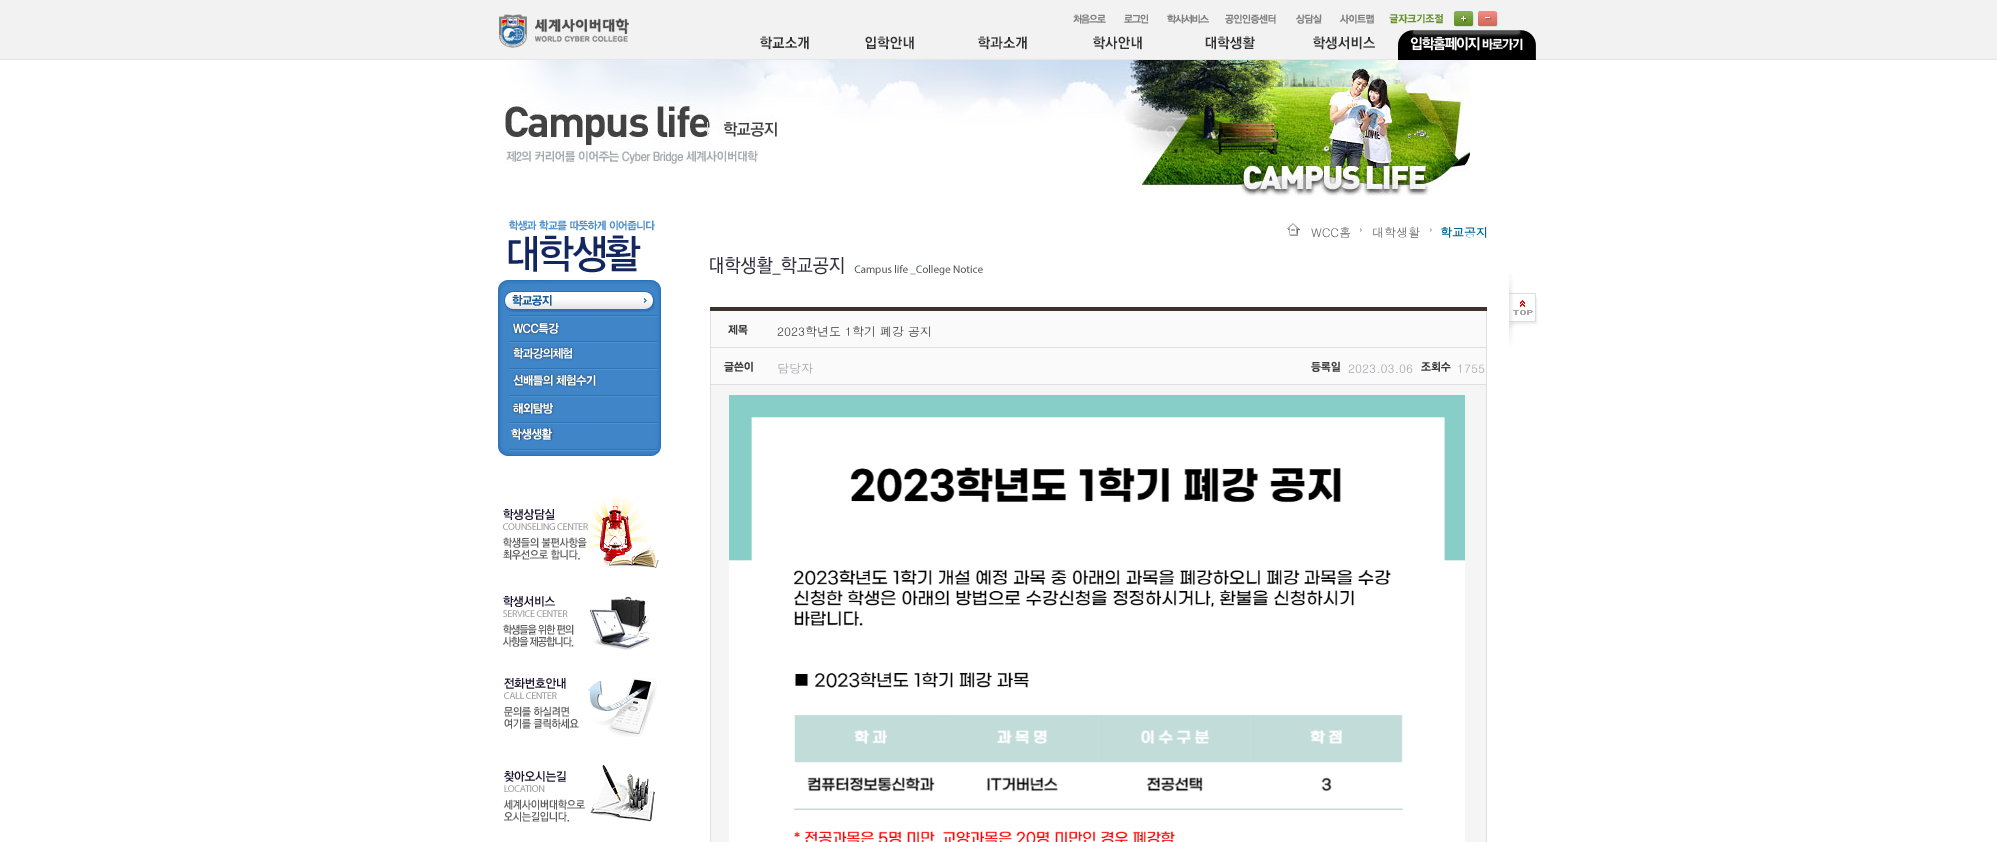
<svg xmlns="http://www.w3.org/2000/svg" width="1997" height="842">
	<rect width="100%" height="100%" fill="#FFFFFF" />
	<rect x="0" y="0" width="1997" height="59" fill="#F2F2F2" />
	<rect x="0" y="59" width="1997" height="1" fill="#E6E6E6" />
	<image x="499" y="14" width="130" height="34" href="assets/img1.png" />
	<image x="1073" y="14" width="33" height="10" href="assets/img2.png" />
	<image x="1124" y="14" width="25" height="10" href="assets/img3.png" />
	<image x="1167" y="14" width="42" height="10" href="assets/img4.png" />
	<image x="1225" y="14" width="51" height="10" href="assets/img5.png" />
	<image x="1296" y="14" width="26" height="10" href="assets/img6.png" />
	<image x="1339" y="14" width="35" height="10" href="assets/img7.png" />
	<image x="1389" y="14" width="54" height="10" href="assets/img8.png" />
	<image x="1454" y="11" width="20" height="16" href="assets/img9.png" />
	<image x="1478" y="11" width="20" height="16" href="assets/img10.png" />
	<image x="760" y="36" width="49" height="14" href="assets/img11.png" />
	<image x="865" y="36" width="49" height="14" href="assets/img12.png" />
	<image x="978" y="36" width="49" height="14" href="assets/img13.png" />
	<image x="1093" y="36" width="49" height="14" href="assets/img14.png" />
	<image x="1205" y="36" width="50" height="14" href="assets/img15.png" />
	<image x="1313" y="36" width="62" height="14" href="assets/img16.png" />
	<image x="1398" y="30" width="138" height="30" href="assets/img17.png" />
	<image x="503" y="60" width="968" height="136" href="assets/img18.png" />
	<image x="1287" y="223" width="13" height="13" href="assets/img19.png" />
	<image x="1360" y="228" width="2" height="4" href="assets/img20.png" />
	<text x="1311" y="237" font-family="Dotum" font-size="12" fill="#666666">WCC홈</text>
	<image x="1430" y="228" width="2" height="4" href="assets/img20.png" />
	<text x="1372" y="237" font-family="Dotum" font-size="12" fill="#666666">대학생활</text>
	<text x="1440" y="237" font-family="Dotum" font-size="12" font-weight="700" fill="#006699">학교공지</text>
	<image x="508" y="220" width="147" height="53" href="assets/img21.png" />
	<image x="498" y="280" width="163" height="10" href="assets/img22.png" />
	<image x="498" y="290" width="163" height="166" href="assets/img23.png" />
	<image x="509" y="315" width="148" height="2" href="assets/img24.png" />
	<image x="504" y="291" width="151" height="21" href="assets/img25.png" />
	<image x="509" y="341" width="148" height="2" href="assets/img24.png" />
	<image x="511" y="321" width="49" height="15" href="assets/img26.png" />
	<image x="509" y="368" width="148" height="2" href="assets/img24.png" />
	<image x="512" y="346" width="62" height="15" href="assets/img27.png" />
	<image x="509" y="395" width="148" height="2" href="assets/img24.png" />
	<image x="512" y="373" width="85" height="15" href="assets/img28.png" />
	<image x="509" y="422" width="148" height="2" href="assets/img24.png" />
	<image x="512" y="401" width="43" height="15" href="assets/img29.png" />
	<image x="509" y="449" width="149" height="2" href="assets/img30.png" />
	<image x="511" y="427" width="43" height="14" href="assets/img31.png" />
	<image x="503" y="496" width="156" height="72" href="assets/img32.png" />
	<image x="502" y="596" width="148" height="54" href="assets/img33.png" />
	<image x="504" y="678" width="153" height="59" href="assets/img34.png" />
	<image x="503" y="765" width="152" height="57" href="assets/img35.png" />
	<image x="710" y="256" width="273" height="19" href="assets/img36.png" />
	<rect x="710" y="307" width="777" height="4" fill="#3D342D" />
	<rect x="1486" y="311" width="1" height="531" fill="#DFDFDF" />
	<rect x="710" y="311" width="1" height="531" fill="#DFDFDF" />
	<rect x="711" y="311" width="775" height="36" fill="#FAFAFA" />
	<image x="728" y="324" width="20" height="11" href="assets/img37.png" />
	<rect x="710" y="347" width="777" height="1" fill="#DFDFDF" />
	<text x="777" y="336" font-family="Dotum" font-size="12" fill="#3D3D3D">2023학년도 1학기 폐강 공지</text>
	<rect x="711" y="348" width="775" height="36" fill="#FAFAFA" />
	<image x="724" y="361" width="29" height="11" href="assets/img38.png" />
	<text x="777" y="373" font-family="Dotum" font-size="12" fill="#A9A8AD">담당자</text>
	<image x="1311" y="361" width="29" height="11" href="assets/img39.png" />
	<text x="1348" y="373" font-family="Dotum" font-size="12" fill="#A9A8AD">2023.03.06</text>
	<image x="1421" y="361" width="30" height="11" href="assets/img40.png" />
	<rect x="710" y="384" width="777" height="1" fill="#DFDFDF" />
	<text x="1457" y="373" font-family="Dotum" font-size="12" fill="#A9A8AD">1755</text>
	<rect x="711" y="385" width="775" height="457" fill="#F5F5F5" />
	<image x="729" y="395" width="736" height="447" href="assets/img41.png" />
	<image x="1509" y="274" width="29" height="72" href="assets/img42.png" />
</svg>
